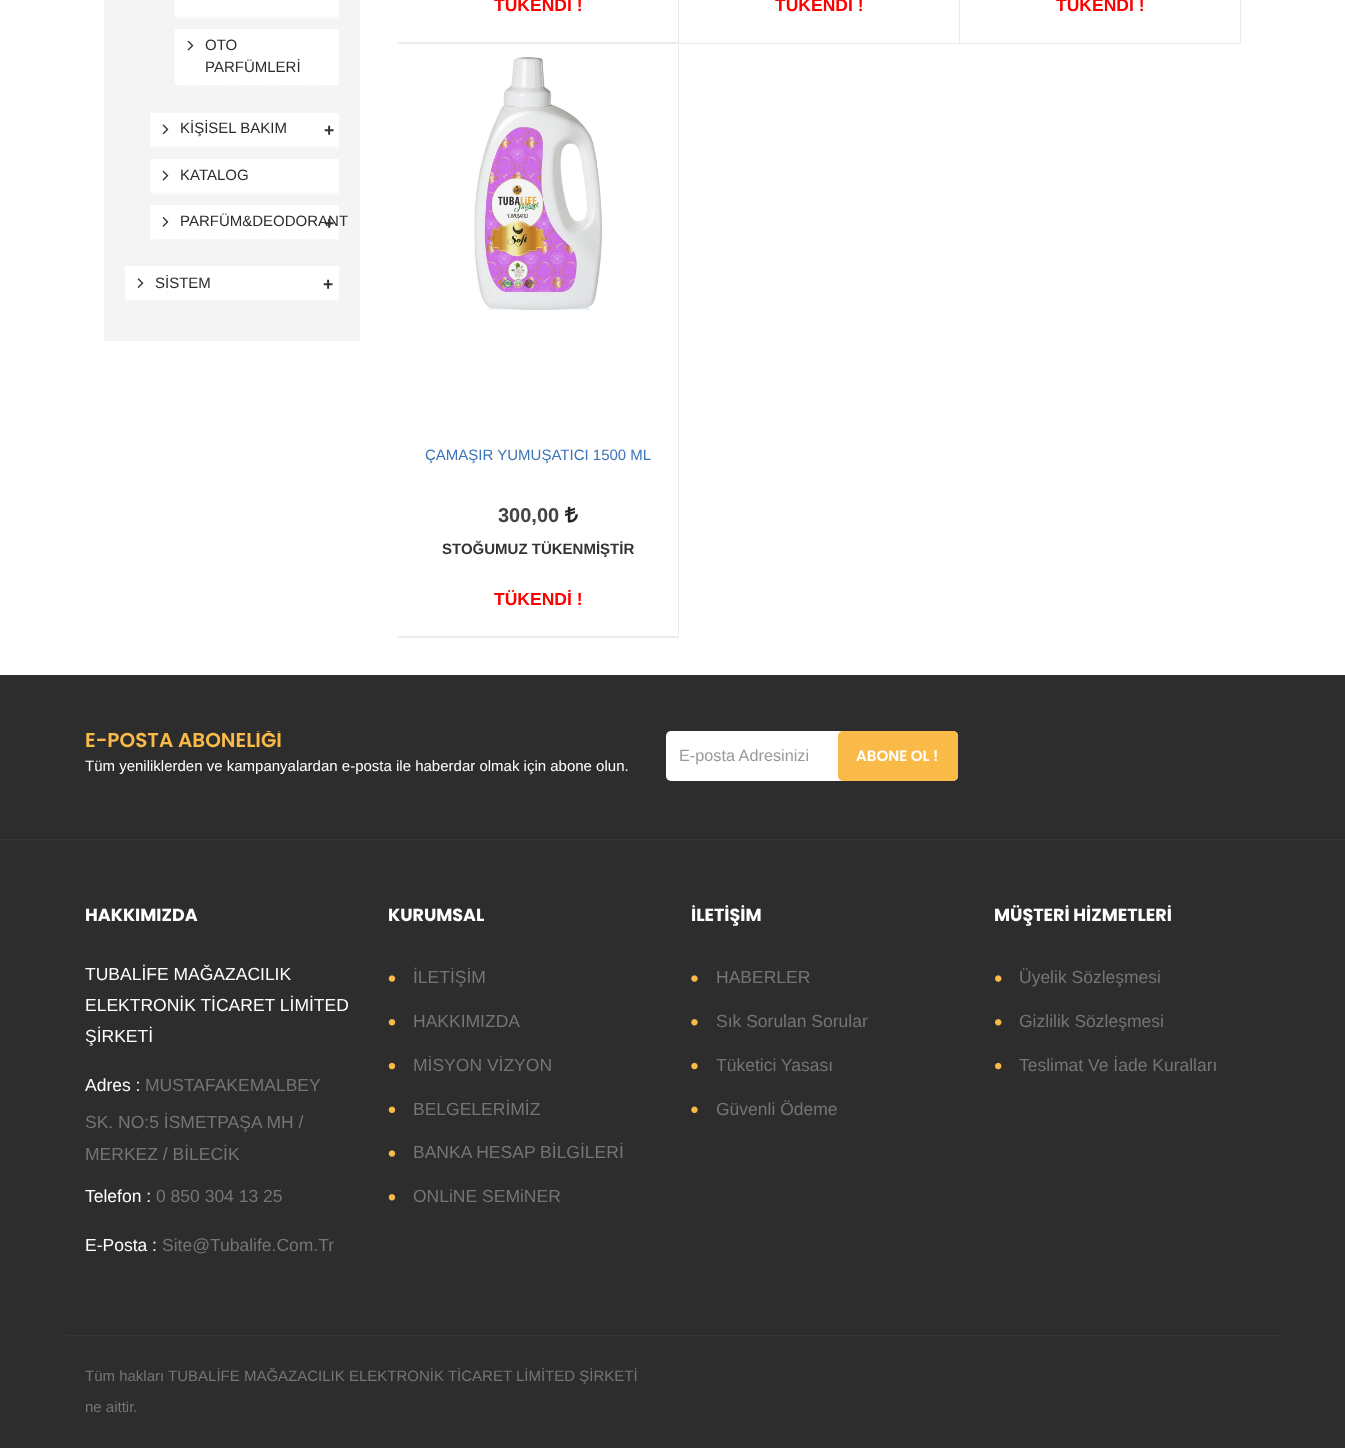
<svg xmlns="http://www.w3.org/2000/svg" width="1345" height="1448">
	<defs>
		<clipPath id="clip1"><rect x="66" y="731" width="910" height="52" /></clipPath>
	</defs>
	<rect width="100%" height="100%" fill="#FFFFFF" />
	<rect x="104" y="0" width="256" height="341" fill="#F4F4F5" />
	<rect x="175" y="0" width="164" height="18" fill="#FFFFFF" />
	<path d="M175 17H339" fill="none" stroke="#EEEEEE" stroke-width="1.2" stroke-dasharray="1.25 1.25" />
	<rect x="175" y="29" width="164" height="57" fill="#FFFFFF" />
	<path d="M175 85.5H339" fill="none" stroke="#EEEEEE" stroke-width="1.2" stroke-dasharray="1.25 1.25" />
	<image x="187" y="40" width="7" height="11" href="assets/img1.png" />
	<g font-family="Liberation Sans" font-size="15" fill="#2C2C2C">
		<text x="205" y="50">OTO</text>
		<text x="205" y="72">PARFÜMLERİ</text>
	</g>
	<rect x="150" y="113" width="189" height="35" fill="#FFFFFF" />
	<path d="M150 147H339" fill="none" stroke="#EEEEEE" stroke-width="1.2" stroke-dasharray="1.25 1.25" />
	<image x="162" y="124" width="7" height="11" href="assets/img2.png" />
	<text x="180" y="133" font-family="Liberation Sans" font-size="15" fill="#2C2C2C">KİŞİSEL BAKIM</text>
	<text x="324" y="136" font-family="Liberation Sans" font-size="17.5" font-weight="700" fill="#333333">+</text>
	<rect x="150" y="159" width="189" height="35" fill="#FFFFFF" />
	<path d="M150 193H339" fill="none" stroke="#EEEEEE" stroke-width="1.2" stroke-dasharray="1.25 1.25" />
	<image x="162" y="170" width="7" height="11" href="assets/img1.png" />
	<text x="180" y="180" font-family="Liberation Sans" font-size="15" fill="#2C2C2C">KATALOG</text>
	<rect x="150" y="205" width="189" height="35" fill="#FFFFFF" />
	<path d="M150 239.5H339" fill="none" stroke="#EEEEEE" stroke-width="1.2" stroke-dasharray="1.25 1.25" />
	<image x="162" y="217" width="7" height="10" href="assets/img3.png" />
	<text x="180" y="226" font-family="Liberation Sans" font-size="15" fill="#2C2C2C">PARFÜM&amp;DEODORANT</text>
	<text x="324" y="229" font-family="Liberation Sans" font-size="17.5" font-weight="700" fill="#333333">+</text>
	<rect x="125" y="266" width="214" height="35" fill="#FFFFFF" />
	<path d="M125 300.5H339" fill="none" stroke="#EEEEEE" stroke-width="1.2" stroke-dasharray="1.25 1.25" />
	<image x="137" y="278" width="7" height="10" href="assets/img4.png" />
	<text x="155" y="288" font-family="Liberation Sans" font-size="15" fill="#2C2C2C">SİSTEM</text>
	<text x="323" y="290" font-family="Liberation Sans" font-size="17.5" font-weight="700" fill="#333333">+</text>
	<rect x="678" y="0" width="1" height="44" fill="#EBEBEB" />
	<text x="494" y="11" font-family="Liberation Sans" font-size="17.5" font-weight="700" fill="#FF0000">TÜKENDİ !</text>
	<rect x="959" y="0" width="1" height="44" fill="#EBEBEB" />
	<path d="M960 44H679L680 42H959Z" fill="#EBEBEB" />
	<rect x="680" y="42" width="279" height="1" fill="#FFFFFF" />
	<text x="775" y="11" font-family="Liberation Sans" font-size="17.5" font-weight="700" fill="#FF0000">TÜKENDİ !</text>
	<rect x="1240" y="0" width="1" height="44" fill="#EBEBEB" />
	<path d="M1241 44H960L961 42H1240Z" fill="#EBEBEB" />
	<rect x="961" y="42" width="279" height="1" fill="#FFFFFF" />
	<text x="1056" y="11" font-family="Liberation Sans" font-size="17.5" font-weight="700" fill="#FF0000">TÜKENDİ !</text>
	<path d="M398 42H679L678 44H399Z" fill="#EBEBEB" />
	<rect x="678" y="43" width="1" height="595" fill="#EBEBEB" />
	<path d="M679 638H398L399 636H678Z" fill="#EBEBEB" />
	<image x="474" y="57" width="128" height="253" href="assets/img5.png" />
	<text x="425" y="460" font-family="Liberation Sans" font-size="15" fill="#3C74B9">ÇAMAŞIR YUMUŞATICI 1500 ML</text>
	<text x="498" y="522" font-family="Liberation Sans" font-size="20" font-weight="700" fill="#434343">300,00</text>
	<image x="565" y="506" width="13" height="17" href="assets/img6.png" />
	<text x="442" y="554" font-family="Liberation Sans" font-size="15" font-weight="700" fill="#333333">STOĞUMUZ TÜKENMİŞTİR</text>
	<text x="494" y="605" font-family="Liberation Sans" font-size="17.5" font-weight="700" fill="#FF0000">TÜKENDİ !</text>
	<rect x="0" y="675" width="1345" height="773" fill="#2D2D2D" />
	<rect x="0" y="839" width="1345" height="1" fill="#383838" />
	<g clip-path="url(#clip1)">
		<text x="85" y="747" font-family="Poppins" font-size="20" font-weight="600" fill="#F9BA48">E-POSTA ABONELİĞİ</text>
	</g>
	<text x="85" y="771" font-family="Liberation Sans" font-size="15" fill="#FFFFFF">Tüm yeniliklerden ve kampanyalardan e-posta ile haberdar olmak için abone olun.</text>
	<rect x="666" y="731" width="292" height="50" rx="5" fill="#FFFFFF" />
	<text x="679" y="761" font-family="Liberation Sans" font-size="16.25" fill="#999999">E-posta Adresinizi</text>
	<rect x="838" y="731" width="120" height="50" rx="5" fill="#F9BA48" />
	<text x="856" y="761" font-family="Poppins" font-size="15" font-weight="600" fill="#FFFFFF">ABONE OL !</text>
	<rect x="66" y="1335" width="1213" height="1" fill="#383838" />
	<text x="85" y="921" font-family="Poppins" font-size="17.5" font-weight="700" fill="#FFFFFF">HAKKIMIZDA</text>
	<g font-family="Liberation Sans" font-size="17.5" fill="#FFFFFF">
		<text x="85" y="980">TUBALİFE MAĞAZACILIK</text>
		<text x="85" y="1011">ELEKTRONİK TİCARET LİMİTED</text>
		<text x="85" y="1042">ŞİRKETİ</text>
		<text x="85" y="1091">Adres :</text>
	</g>
	<g font-family="Liberation Sans" font-size="17.5" fill="#757575">
		<text x="145" y="1091">MUSTAFAKEMALBEY</text>
		<text x="85" y="1128">SK. NO:5 İSMETPAŞA MH /</text>
		<text x="85" y="1160">MERKEZ / BİLECİK</text>
	</g>
	<text x="85" y="1202" font-family="Liberation Sans" font-size="17.5" fill="#FFFFFF">Telefon :</text>
	<text x="156" y="1202" font-family="Liberation Sans" font-size="17.5" fill="#757575">0 850 304 13 25</text>
	<text x="85" y="1251" font-family="Liberation Sans" font-size="17.5" fill="#FFFFFF">E-Posta :</text>
	<text x="162" y="1251" font-family="Liberation Sans" font-size="17.5" fill="#757575">Site@Tubalife.Com.Tr</text>
	<text x="388" y="921" font-family="Poppins" font-size="17.5" font-weight="700" fill="#FFFFFF">KURUMSAL</text>
	<image x="388" y="975" width="8" height="7" href="assets/img7.png" />
	<text x="413" y="983" font-family="Liberation Sans" font-size="17.5" fill="#757575">İLETİŞİM</text>
	<image x="388" y="1019" width="8" height="7" href="assets/img8.png" />
	<text x="413" y="1027" font-family="Liberation Sans" font-size="17.5" fill="#757575">HAKKIMIZDA</text>
	<image x="388" y="1062" width="8" height="8" href="assets/img9.png" />
	<text x="413" y="1071" font-family="Liberation Sans" font-size="17.5" fill="#757575">MİSYON VİZYON</text>
	<image x="388" y="1106" width="8" height="7" href="assets/img10.png" />
	<text x="413" y="1115" font-family="Liberation Sans" font-size="17.5" fill="#757575">BELGELERİMİZ</text>
	<image x="388" y="1150" width="8" height="7" href="assets/img7.png" />
	<text x="413" y="1158" font-family="Liberation Sans" font-size="17.5" fill="#757575">BANKA HESAP BİLGİLERİ</text>
	<image x="388" y="1194" width="8" height="7" href="assets/img8.png" />
	<text x="413" y="1202" font-family="Liberation Sans" font-size="17.5" fill="#757575">ONLiNE SEMiNER</text>
	<text x="691" y="921" font-family="Poppins" font-size="17.5" font-weight="700" fill="#FFFFFF">İLETİŞİM</text>
	<image x="691" y="975" width="7" height="7" href="assets/img11.png" />
	<text x="716" y="983" font-family="Liberation Sans" font-size="17.5" fill="#757575">HABERLER</text>
	<image x="691" y="1019" width="7" height="7" href="assets/img12.png" />
	<text x="716" y="1027" font-family="Liberation Sans" font-size="17.5" fill="#757575">Sık Sorulan Sorular</text>
	<image x="691" y="1062" width="7" height="8" href="assets/img13.png" />
	<text x="716" y="1071" font-family="Liberation Sans" font-size="17.5" fill="#757575">Tüketici Yasası</text>
	<image x="691" y="1106" width="7" height="7" href="assets/img14.png" />
	<text x="716" y="1115" font-family="Liberation Sans" font-size="17.5" fill="#757575">Güvenli Ödeme</text>
	<text x="994" y="921" font-family="Poppins" font-size="17.5" font-weight="700" fill="#FFFFFF">MÜŞTERİ HİZMETLERİ</text>
	<image x="995" y="975" width="7" height="7" href="assets/img15.png" />
	<text x="1019" y="983" font-family="Liberation Sans" font-size="17.5" fill="#757575">Üyelik Sözleşmesi</text>
	<image x="995" y="1019" width="7" height="7" href="assets/img16.png" />
	<text x="1019" y="1027" font-family="Liberation Sans" font-size="17.5" fill="#757575">Gizlilik Sözleşmesi</text>
	<image x="995" y="1062" width="7" height="8" href="assets/img17.png" />
	<text x="1019" y="1071" font-family="Liberation Sans" font-size="17.5" fill="#757575">Teslimat Ve İade Kuralları</text>
	<g font-family="Liberation Sans" font-size="15" fill="#757575">
		<text x="85" y="1381">Tüm hakları TUBALİFE MAĞAZACILIK ELEKTRONİK TİCARET LİMİTED ŞİRKETİ</text>
		<text x="85" y="1412">ne aittir.</text>
	</g>
</svg>
